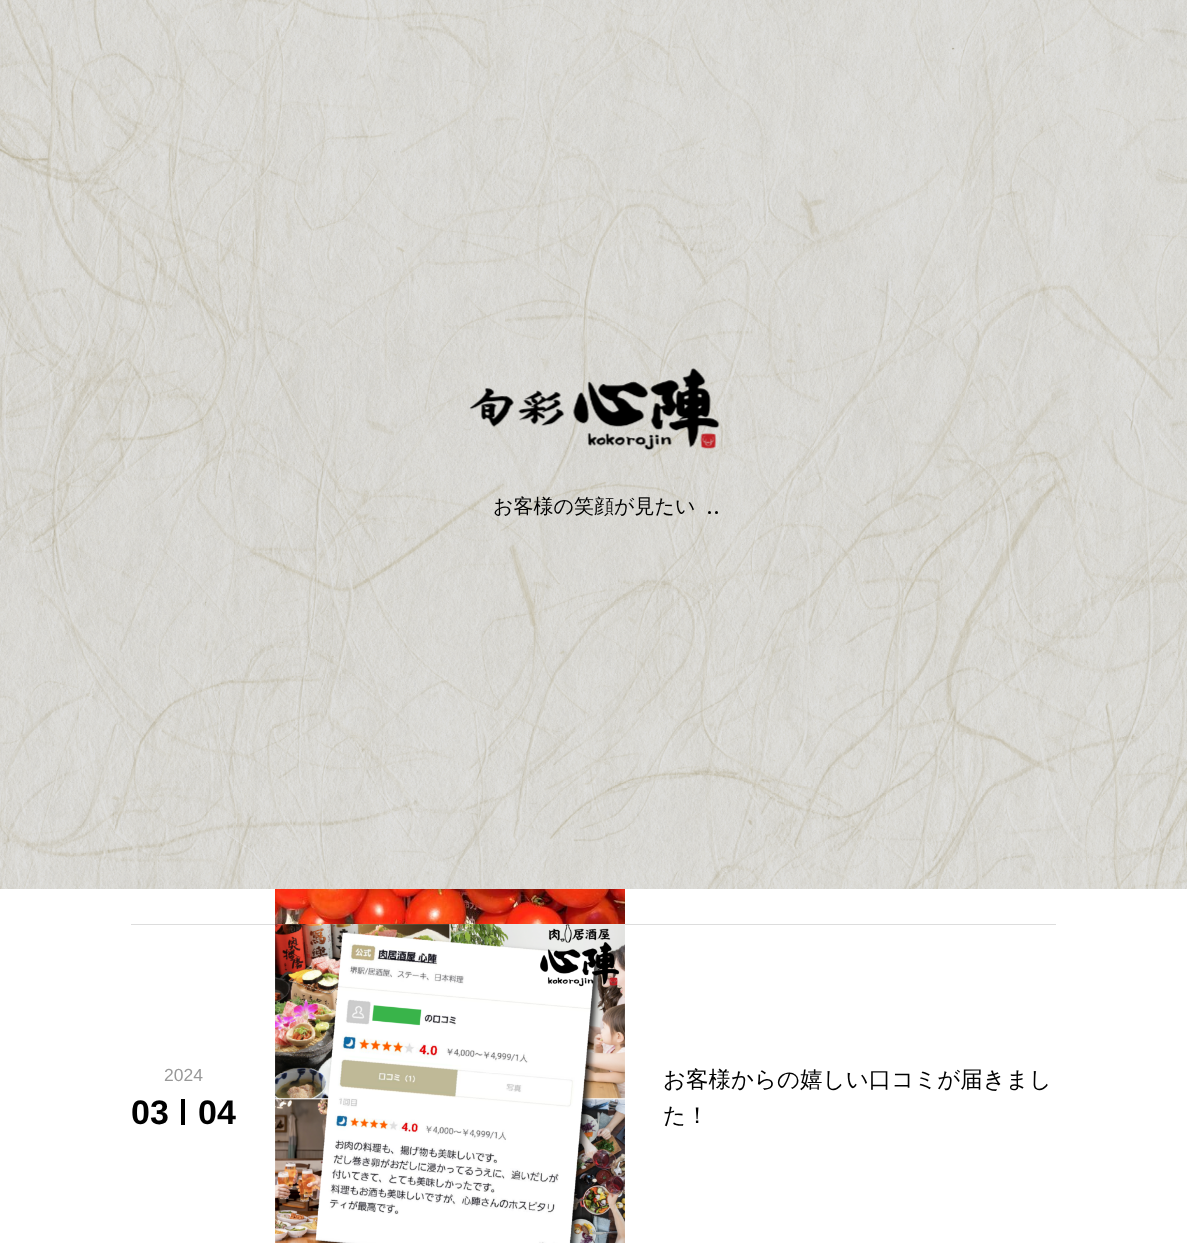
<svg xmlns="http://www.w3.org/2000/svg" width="1187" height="1243">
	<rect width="100%" height="100%" fill="#FFFFFF" />
	<image x="0" y="0" width="1187" height="889" href="assets/img1.png" />
	<image x="469" y="368" width="251" height="83" href="assets/img2.png" />
	<text x="493" y="513" font-family="WenQuanYi Zen Hei" font-size="20" font-weight="500" fill="#000000">お客様の笑顔が見たい</text>
	<circle cx="709.5" cy="512.5" r="1.5" fill="#000000" />
	<circle cx="716.5" cy="512.5" r="1.5" fill="#000000" />
	<rect x="131" y="924" width="925" height="1" fill="#DDDDDD" />
	<image x="275" y="889" width="350" height="35" href="assets/img3.png" />
	<text x="164" y="1081" font-family="Liberation Sans" font-size="17.5" fill="#999999">2024</text>
	<text x="131" y="1124" font-family="Liberation Sans" font-size="34" font-weight="700" fill="#000000">03</text>
	<rect x="181" y="1099" width="4" height="26" fill="#000000" />
	<text x="198" y="1124" font-family="Liberation Sans" font-size="34" font-weight="700" fill="#000000">04</text>
	<image x="275" y="924" width="350" height="319" href="assets/img4.png" />
	<g font-family="WenQuanYi Zen Hei" font-size="22.5" font-weight="500" fill="#000000">
		<text x="663" y="1087">お客様からの嬉しい口コミが届きまし</text>
		<text x="663" y="1123">た！</text>
	</g>
</svg>
